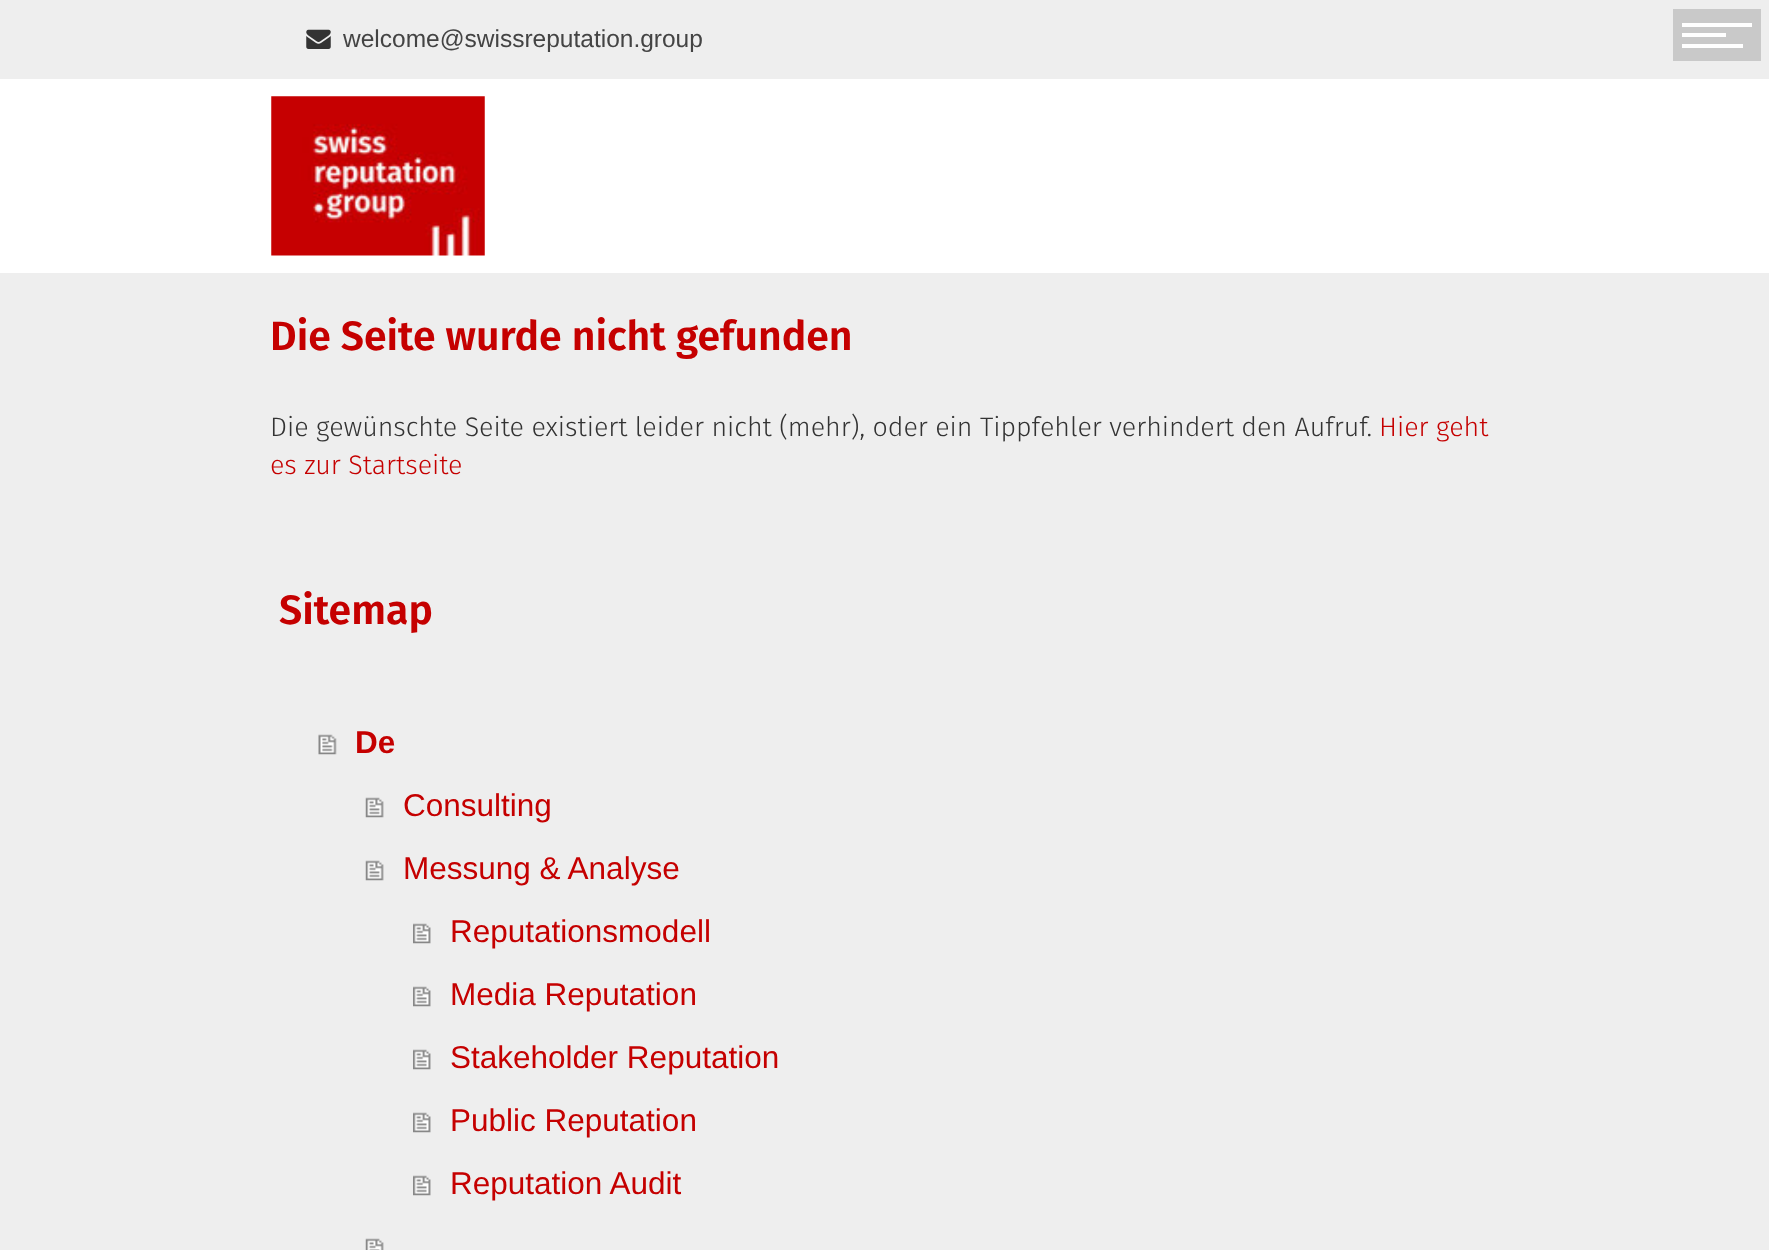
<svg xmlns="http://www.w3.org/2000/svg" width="1769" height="1250">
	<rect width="100%" height="100%" fill="#EEEEEE" />
	<rect x="0" y="79" width="1769" height="194" fill="#FFFFFF" />
	<image x="306" y="29" width="25" height="20" href="assets/img1.png" />
	<text x="343" y="47" font-family="Liberation Sans" font-size="24.5" fill="#444444">welcome@swissreputation.group</text>
	<image x="271" y="96" width="214" height="160" href="assets/img2.png" />
	<rect x="1673" y="9" width="88" height="52" fill="#C9C9C9" />
	<rect x="1682" y="23" width="70" height="4" fill="#FFFFFF" />
	<rect x="1682" y="33" width="44" height="4" fill="#FFFFFF" />
	<rect x="1682" y="44" width="61" height="4" fill="#FFFFFF" />
	<text x="270" y="350" font-family="Fira Sans" font-size="41" font-weight="600" fill="#C50000">Die Seite wurde nicht gefunden</text>
	<text x="270" y="436" font-family="Fira Sans" font-size="26.8" font-weight="300" fill="#333333">Die gewünschte Seite existiert leider nicht (mehr), oder ein Tippfehler verhindert den Aufruf.</text>
	<g font-family="Fira Sans" font-size="26.8" font-weight="300" fill="#C50000">
		<text x="1379" y="436">Hier geht</text>
		<text x="270" y="474">es zur Startseite</text>
	</g>
	<text x="279" y="624" font-family="Fira Sans" font-size="41" font-weight="600" fill="#C50000">Sitemap</text>
	<image x="318" y="734" width="19" height="21" href="assets/img3.png" />
	<text x="355" y="753" font-family="Liberation Sans" font-size="31.5" font-weight="700" fill="#C50000">De</text>
	<image x="365" y="797" width="19" height="21" href="assets/img4.png" />
	<text x="403" y="816" font-family="Liberation Sans" font-size="31.5" fill="#C50000">Consulting</text>
	<image x="365" y="860" width="19" height="21" href="assets/img4.png" />
	<text x="403" y="879" font-family="Liberation Sans" font-size="31.5" fill="#C50000">Messung &amp; Analyse</text>
	<image x="413" y="923" width="18" height="21" href="assets/img5.png" />
	<text x="450" y="942" font-family="Liberation Sans" font-size="31.5" fill="#C50000">Reputationsmodell</text>
	<image x="413" y="986" width="18" height="21" href="assets/img5.png" />
	<text x="450" y="1005" font-family="Liberation Sans" font-size="31.5" fill="#C50000">Media Reputation</text>
	<image x="413" y="1049" width="18" height="21" href="assets/img5.png" />
	<text x="450" y="1068" font-family="Liberation Sans" font-size="31.5" fill="#C50000">Stakeholder Reputation</text>
	<image x="413" y="1112" width="18" height="21" href="assets/img5.png" />
	<text x="450" y="1131" font-family="Liberation Sans" font-size="31.5" fill="#C50000">Public Reputation</text>
	<image x="413" y="1175" width="18" height="21" href="assets/img5.png" />
	<text x="450" y="1194" font-family="Liberation Sans" font-size="31.5" fill="#C50000">Reputation Audit</text>
	<image x="365" y="1238" width="19" height="12" href="assets/img6.png" />
</svg>
